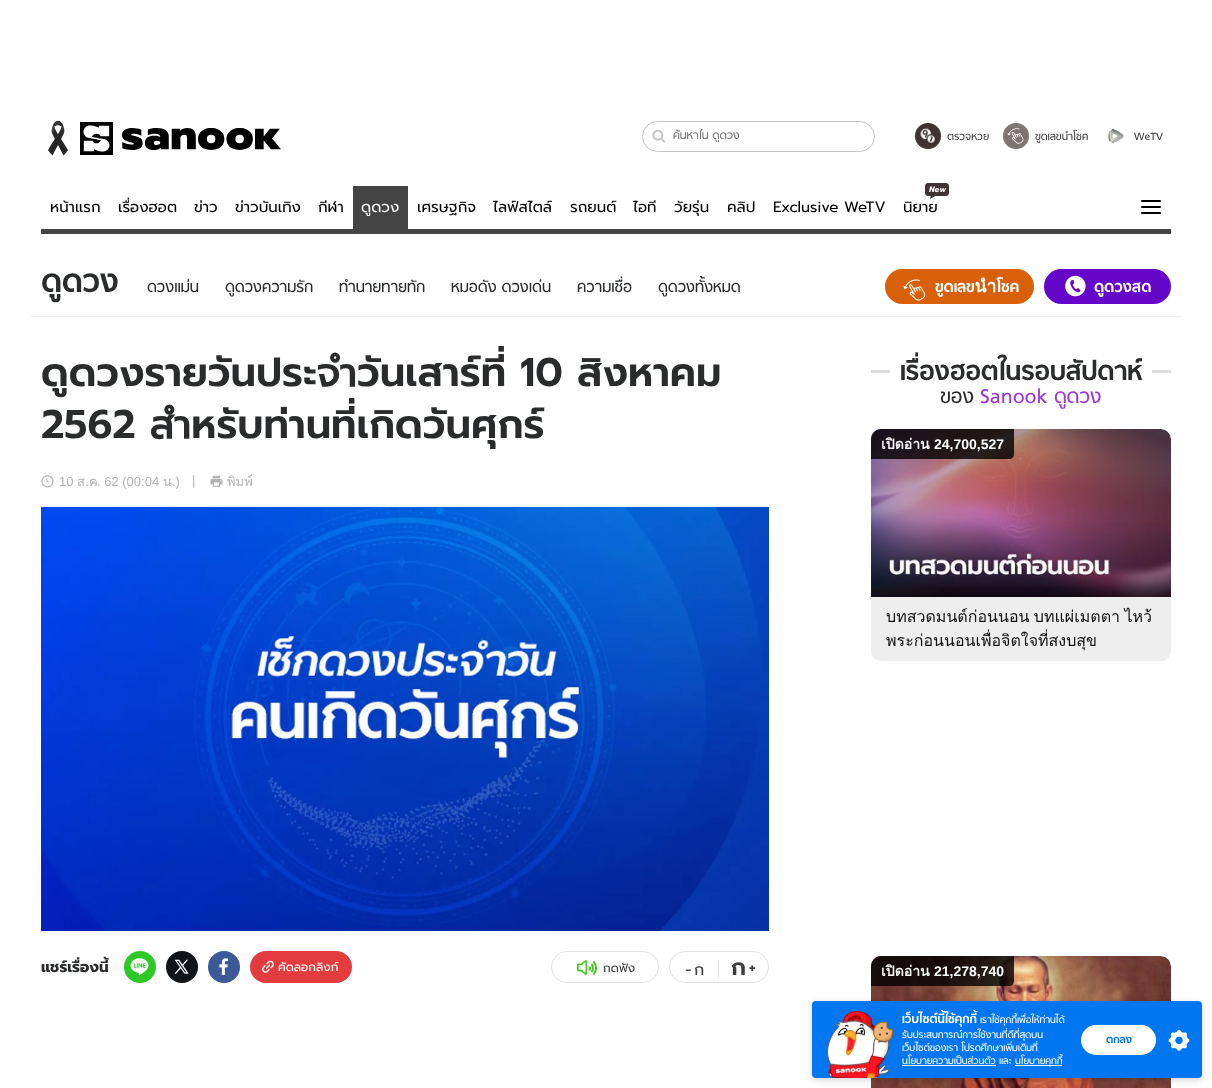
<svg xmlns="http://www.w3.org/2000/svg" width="1212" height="1088">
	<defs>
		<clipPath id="clip1"><rect x="673" y="129" width="199" height="13" /></clipPath>
	</defs>
	<rect width="100%" height="100%" fill="#FFFFFF" />
	<image x="48" y="120" width="233" height="36" href="assets/img1.png" />
	<rect x="642.5" y="121.5" width="232" height="30" rx="15" fill="none" stroke="#C3C3C3" />
	<image x="652" y="129" width="14" height="14" href="assets/img2.png" />
	<g clip-path="url(#clip1)">
		<text x="673" y="139" font-family="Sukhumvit" font-size="13" fill="#757575">ค้นหาใน ดูดวง</text>
	</g>
	<circle cx="928" cy="136" r="13" fill="#3E3232" />
	<image x="920" y="128" width="15" height="15" href="assets/img3.png" />
	<text x="947" y="140" font-family="Sukhumvit" font-size="12" fill="#3D3D3D">ตรวจหวย</text>
	<circle cx="1016" cy="136" r="13" fill="#7E7573" />
	<image x="1007" y="128" width="17" height="16" href="assets/img4.png" />
	<text x="1035" y="140" font-family="Sukhumvit" font-size="12" fill="#3D3D3D">ขูดเลขนำโชค</text>
	<image x="1108" y="129" width="16" height="14" href="assets/img5.png" />
	<text x="1134" y="140" font-family="Sukhumvit" font-size="12" fill="#3D3D3D">WeTV</text>
	<rect x="41" y="229" width="1130" height="5" fill="#444444" />
	<g font-family="Prompt" font-size="15" fill="#000000">
		<text x="50" y="212">หน้าแรก</text>
		<text x="118" y="212">เรื่องฮอต</text>
		<text x="194" y="212">ข่าว</text>
		<text x="235" y="212">ข่าวบันเทิง</text>
		<text x="318" y="212">กีฬา</text>
	</g>
	<rect x="353" y="186" width="55" height="43" fill="#444444" />
	<text x="361" y="212" font-family="Prompt" font-size="15" fill="#FFFFFF">ดูดวง</text>
	<g font-family="Prompt" font-size="15" fill="#000000">
		<text x="417" y="212">เศรษฐกิจ</text>
		<text x="493" y="212">ไลฟ์สไตล์</text>
		<text x="570" y="212">รถยนต์</text>
		<text x="633" y="212">ไอที</text>
		<text x="674" y="212">วัยรุ่น</text>
		<text x="727" y="212">คลิป</text>
		<text x="773" y="212">Exclusive WeTV</text>
	</g>
	<image x="925" y="183" width="24" height="16" href="assets/img6.png" />
	<text x="903" y="212" font-family="Prompt" font-size="15" fill="#000000">นิยาย</text>
	<rect x="1141" y="200" width="20" height="2" rx="1" fill="#000000" />
	<rect x="1141" y="206" width="20" height="2" rx="1" fill="#000000" />
	<rect x="1141" y="212" width="20" height="2" rx="1" fill="#000000" />
	<rect x="31" y="316" width="1150" height="1" fill="#EEEEEE" />
	<text x="41" y="292" font-family="Sukhumvit" font-size="36" font-weight="700" fill="#292B2C">ดูดวง</text>
	<g font-family="Sukhumvit" font-size="17.5" fill="#292B2C">
		<text x="147" y="292">ดวงแม่น</text>
		<text x="225" y="292">ดูดวงความรัก</text>
		<text x="339" y="292">ทํานายทายทัก</text>
		<text x="451" y="292">หมอดัง ดวงเด่น</text>
		<text x="577" y="292">ความเชื่อ</text>
		<text x="658" y="292">ดูดวงทั้งหมด</text>
	</g>
	<rect x="885" y="269" width="149" height="35" rx="17.5" fill="#D86008" />
	<image x="903" y="279" width="23" height="22" href="assets/img7.png" />
	<text x="935" y="292" font-family="Sukhumvit" font-size="17.5" font-weight="700" fill="#FFFFFF">ขูดเลขนำโชค</text>
	<rect x="1044" y="269" width="127" height="35" rx="17.5" fill="#6507C9" />
	<image x="1065" y="275" width="21" height="22" href="assets/img8.png" />
	<text x="1094" y="292" font-family="Sukhumvit" font-size="17.5" font-weight="700" fill="#FFFFFF">ดูดวงสด</text>
	<g font-family="Prompt" font-size="40" font-weight="600" fill="#292B2C">
		<text x="41" y="386">ดูดวงรายวันประจำวันเสาร์ที่ 10 สิงหาคม</text>
		<text x="41" y="438">2562 สำหรับท่านที่เกิดวันศุกร์</text>
	</g>
	<image x="41" y="475" width="13" height="13" href="assets/img9.png" />
	<text x="59" y="486" font-family="Liberation Sans" font-size="13" fill="#B3B3B3">10</text>
	<text x="77" y="486" font-family="Loma" font-size="13" fill="#B3B3B3">ส</text>
	<text x="85" y="486" font-family="Liberation Sans" font-size="13" fill="#B3B3B3">.</text>
	<text x="89" y="486" font-family="Loma" font-size="13" fill="#B3B3B3">ค</text>
	<text x="97" y="486" font-family="Liberation Sans" font-size="13" fill="#B3B3B3">. 62 (00:04</text>
	<text x="163" y="486" font-family="Loma" font-size="13" fill="#B3B3B3">น</text>
	<g font-family="Liberation Sans" font-size="13" fill="#B3B3B3">
		<text x="172" y="486">.)</text>
		<text x="192" y="485">|</text>
	</g>
	<image x="210" y="475" width="13" height="12" href="assets/img10.png" />
	<text x="227" y="486" font-family="Loma" font-size="13" fill="#B3B3B3">พิมพ์</text>
	<image x="41" y="507" width="728" height="424" href="assets/img11.png" />
	<text x="41" y="972" font-family="Prompt" font-size="15" font-weight="700" fill="#292B2C">แชร์เรื่องนี้</text>
	<circle cx="140" cy="967" r="16" fill="#2EC927" />
	<image x="130" y="958" width="19" height="18" href="assets/img12.png" />
	<circle cx="182" cy="967" r="16" fill="#0F1419" />
	<image x="174" y="959" width="15" height="15" href="assets/img13.png" />
	<circle cx="224" cy="967" r="16" fill="#3B5998" />
	<image x="219" y="958" width="9" height="17" href="assets/img14.png" />
	<rect x="250" y="951" width="102" height="32" rx="16" fill="#E33C3F" />
	<text x="278" y="971" font-family="Prompt" font-size="12" fill="#FFFFFF">คัดลอกลิงก์</text>
	<image x="262" y="960" width="12" height="13" href="assets/img15.png" />
	<rect x="551.5" y="951.5" width="107" height="31" rx="15.5" fill="none" stroke="#E2E2E2" />
	<image x="577" y="960" width="11" height="15" href="assets/img16.png" />
	<path d="M589.5 966.5C590 967.5 590 969.5 589.5 970.5M591.5 964C593.5 966 593.5 970 591.5 972M593.5 961.5C597 965 597 971 593.5 974.5" fill="none" stroke="#3DCA1D" stroke-width="2" />
	<text x="603" y="972" font-family="Prompt" font-size="12" fill="#3D3D3D">กดฟัง</text>
	<rect x="669.5" y="951.5" width="99" height="31" rx="15.5" fill="none" stroke="#E2E2E2" />
	<g font-family="Prompt" font-size="16" fill="#3D3D3D">
		<text x="685" y="975">-</text>
		<text x="694" y="975">ก</text>
	</g>
	<rect x="718" y="960" width="1" height="18" fill="#E2E2E2" />
	<text x="731" y="975" font-family="Prompt" font-size="23" font-weight="600" fill="#3D3D3D">ก</text>
	<text x="749" y="973" font-family="Prompt" font-size="16" font-weight="600" fill="#3D3D3D">+</text>
	<rect x="871" y="370" width="19" height="3" fill="#DDDDDD" />
	<text x="900" y="380" font-family="Sukhumvit" font-size="29.5" font-weight="700" fill="#292B2C">เรื่องฮอตในรอบสัปดาห์</text>
	<rect x="1152" y="370" width="19" height="3" fill="#DDDDDD" />
	<text x="940" y="403" font-family="Sukhumvit" font-size="22.5" fill="#292B2C">ของ</text>
	<text x="980" y="403" font-family="Sukhumvit" font-size="22.5" fill="#9F35D5">Sanook ดูดวง</text>
	<path d="M881 429H1161C1166.5 429 1171 433.5 1171 439V597H871V439C871 433.5 875.5 429 881 429Z" fill="#EEEEEE" />
	<image x="871" y="429" width="300" height="168" href="assets/img17.png" />
	<path d="M881 429H1014V454C1014 457 1012 459 1009 459H871V439C871 433.5 875.5 429 881 429Z" fill="#000000" fill-opacity="0.8" />
	<text x="881" y="449" font-family="Loma" font-size="14" font-weight="700" fill="#FFFFFF">เปิดอ่าน</text>
	<text x="934" y="449" font-family="Liberation Sans" font-size="14" font-weight="700" fill="#FFFFFF">24,700,527</text>
	<path d="M871 597H1171V651C1171 656.5 1166.5 661 1161 661H881C875.5 661 871 656.5 871 651Z" fill="#EEEEEE" />
	<g font-family="Loma" font-size="16" fill="#111111">
		<text x="886" y="622" word-spacing="-1">บทสวดมนต์ก่อนนอน บทแผ่เมตตา ไหว้</text>
		<text x="886" y="646">พระก่อนนอนเพื่อจิตใจที่สงบสุข</text>
	</g>
	<path d="M881 956H1161C1166.5 956 1171 960.5 1171 966V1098H871V966C871 960.5 875.5 956 881 956Z" fill="#EEEEEE" />
	<image x="871" y="956" width="300" height="132" href="assets/img18.png" />
	<path d="M881 956H1014V981C1014 984 1012 986 1009 986H871V966C871 960.5 875.5 956 881 956Z" fill="#000000" fill-opacity="0.8" />
	<text x="881" y="976" font-family="Loma" font-size="14" font-weight="700" fill="#FFFFFF">เปิดอ่าน</text>
	<text x="934" y="976" font-family="Liberation Sans" font-size="14" font-weight="700" fill="#FFFFFF">21,278,740</text>
	<rect x="812" y="1003" width="390" height="77" rx="4" fill="#000000" fill-opacity="0.17" filter="blur(3px)" />
	<rect x="812" y="1001" width="390" height="77" rx="4" fill="#0076F1" />
	<image x="826" y="1011" width="67" height="67" href="assets/img19.png" />
	<text x="902" y="1023" font-family="Sukhumvit" font-size="13.75" font-weight="700" fill="#FFFFFF">เว็บไซต์นี้ใช้คุกกี้</text>
	<g font-family="Sukhumvit" font-size="11" fill="#FFFFFF">
		<text x="980" y="1023">เราใช้คุกกี้เพื่อให้ท่านได้</text>
		<text x="902" y="1038">รับประสบการณ์การใช้งานที่ดีที่สุดบน</text>
		<text x="902" y="1051">เว็บไซต์ของเรา โปรดศึกษาเพิ่มเติมที่</text>
		<text x="902" y="1064">นโยบายความเป็นส่วนตัว และ</text>
	</g>
	<rect x="902" y="1065" width="94" height="1" fill="#FFFFFF" />
	<rect x="1015" y="1065" width="47" height="1" fill="#FFFFFF" />
	<text x="1015" y="1064" font-family="Sukhumvit" font-size="11" fill="#FFFFFF">นโยบายคุกกี้</text>
	<rect x="1081" y="1025" width="75" height="30" rx="15" fill="#FFFFFF" />
	<text x="1106" y="1043" font-family="Sukhumvit" font-size="12" font-weight="700" fill="#0076F1">ตกลง</text>
	<image x="1168" y="1030" width="22" height="21" href="assets/img20.png" />
</svg>
